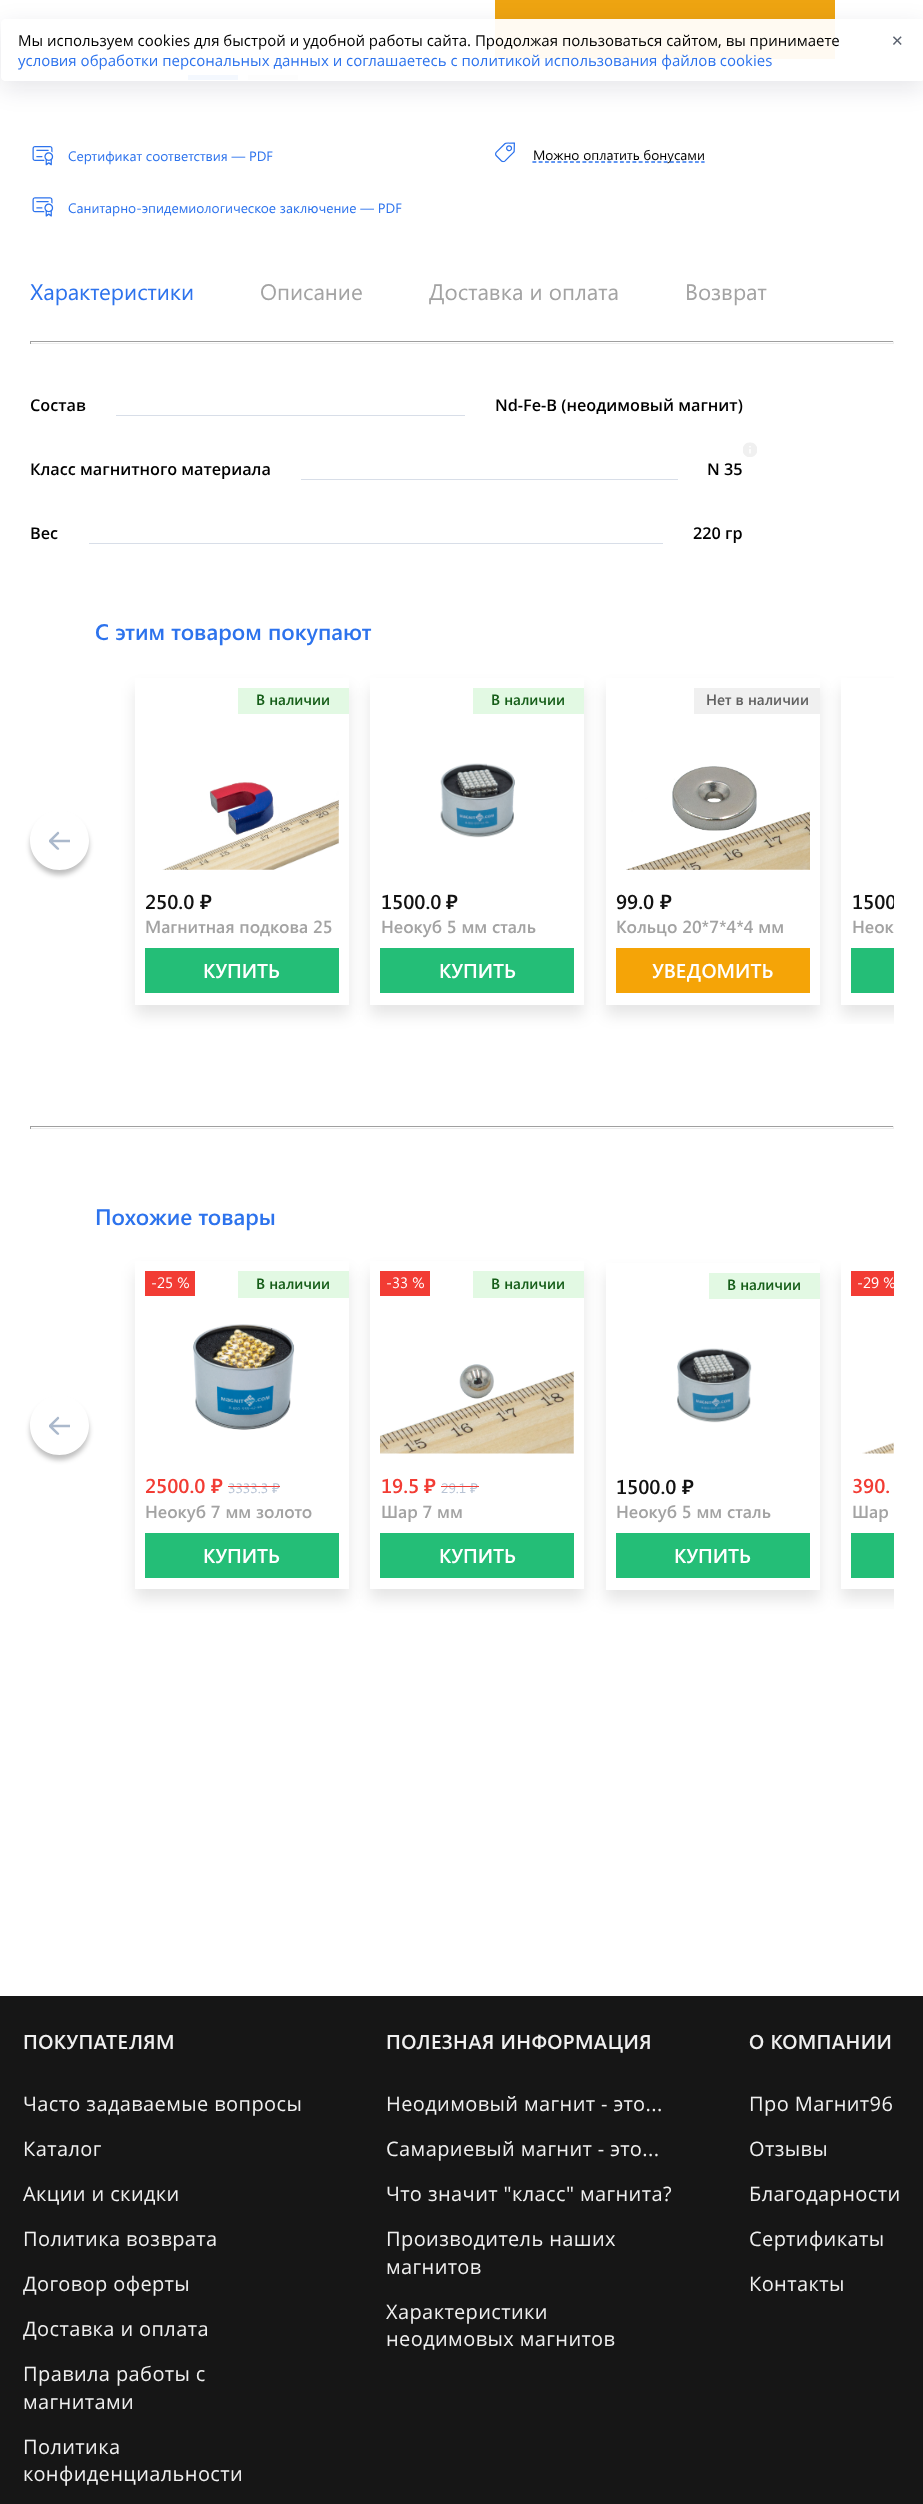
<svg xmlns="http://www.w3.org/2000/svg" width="923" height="2504">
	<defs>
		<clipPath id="clip1"><path d="M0 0H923V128H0ZM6 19H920C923 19 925 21 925 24V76C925 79 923 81 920 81H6C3 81 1 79 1 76V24C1 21 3 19 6 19Z" clip-rule="evenodd" /></clipPath>
		<clipPath id="clip2"><path d="M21 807H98V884H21ZM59.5 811C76 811 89 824 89 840.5C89 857 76 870 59.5 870C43 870 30 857 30 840.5C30 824 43 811 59.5 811Z" clip-rule="evenodd" /></clipPath>
		<clipPath id="clip3"><rect x="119" y="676" width="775" height="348" /></clipPath>
		<clipPath id="clip4"><rect x="119" y="676" width="775" height="348" /></clipPath>
		<clipPath id="clip5"><path d="M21 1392H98V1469H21ZM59.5 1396C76 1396 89 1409 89 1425.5C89 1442 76 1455 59.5 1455C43 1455 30 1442 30 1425.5C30 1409 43 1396 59.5 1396Z" clip-rule="evenodd" /></clipPath>
		<clipPath id="clip6"><rect x="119" y="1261" width="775" height="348" /></clipPath>
		<clipPath id="clip7"><rect x="119" y="1261" width="775" height="348" /></clipPath>
	</defs>
	<rect width="100%" height="100%" fill="#FFFFFF" />
	<rect x="188" y="75" width="50" height="5" fill="#2D73ED" />
	<rect x="248" y="75" width="50" height="5" fill="#CCCCCC" />
	<rect x="495" y="0" width="340" height="59" fill="#EEA411" />
	<g clip-path="url(#clip1)">
		<rect x="1" y="26" width="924" height="63" rx="5" fill="#060532" fill-opacity="0.1" filter="blur(12.5px)" />
	</g>
	<rect x="1" y="19" width="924" height="62" rx="5" fill="#FFFFFF" fill-opacity="0.95" />
	<text x="18" y="46" font-family="Open Sans" font-size="15" fill="#000000">Мы используем cookies для быстрой и удобной работы сайта. Продолжая пользоваться сайтом, вы принимаете</text>
	<text x="891" y="46" font-family="DejaVu Sans" font-size="15" fill="#5C6370">✕</text>
	<text x="18" y="66" font-family="Open Sans" font-size="15" fill="#2D73ED">условия обработки персональных данных и соглашаетесь с политикой использования файлов cookies</text>
	<image x="32" y="146" width="22" height="20" href="assets/img1.png" />
	<text x="68" y="161" font-family="Segoe UI" font-size="13.75" fill="#2D73ED">Сертификат соответствия — PDF</text>
	<image x="32" y="197" width="22" height="20" href="assets/img2.png" />
	<text x="68" y="213" font-family="Segoe UI" font-size="13.75" fill="#2D73ED">Санитарно-эпидемиологическое заключение — PDF</text>
	<image x="495" y="142" width="20" height="21" href="assets/img3.png" />
	<path d="M532.5 162H704.5" fill="none" stroke="#2D73ED" stroke-width="1.2" stroke-dasharray="3.75 2.5" />
	<path d="M532.5 162H704.5" fill="none" stroke="#2D73ED" stroke-width="1.2" stroke-dasharray="3.75 2.5" />
	<text x="533" y="160" font-family="Segoe UI" font-size="13.75" fill="#000000">Можно оплатить бонусами</text>
	<text x="30" y="300" font-family="Segoe UI" font-size="22.5" fill="#2D73ED">Характеристики</text>
	<g font-family="Segoe UI" font-size="22.5" fill="#A3A3A3">
		<text x="260" y="300">Описание</text>
		<text x="429" y="300">Доставка и оплата</text>
		<text x="685" y="300">Возврат</text>
	</g>
	<rect x="30" y="341" width="864" height="1" fill="#9F9F9F" />
	<rect x="893" y="341" width="1" height="3" fill="#EEEEEE" />
	<rect x="30" y="343" width="864" height="1" fill="#EEEEEE" />
	<rect x="30" y="341" width="1" height="3" fill="#9F9F9F" />
	<g font-family="Open Sans" font-size="16.25" font-weight="600" fill="#000000">
		<text x="30" y="411">Состав</text>
		<text x="495" y="411">Nd-Fe-B (неодимовый магнит)</text>
	</g>
	<rect x="116" y="415" width="349" height="1" fill="#D8DEE8" />
	<image x="743" y="442" width="14" height="15" href="assets/img4.png" />
	<g font-family="Open Sans" font-size="16.25" font-weight="600" fill="#000000">
		<text x="30" y="475">Класс магнитного материала</text>
		<text x="707" y="475">N 35</text>
	</g>
	<rect x="301" y="479" width="377" height="1" fill="#D8DEE8" />
	<g font-family="Open Sans" font-size="16.25" font-weight="600" fill="#000000">
		<text x="30" y="539">Вес</text>
		<text x="693" y="539">220 гр</text>
	</g>
	<rect x="89" y="543" width="574" height="1" fill="#D8DEE8" />
	<text x="95" y="640" font-family="Segoe UI" font-size="22.5" font-weight="600" fill="#2D73ED">С этим товаром покупают</text>
	<g clip-path="url(#clip2)">
		<rect x="30" y="816" width="59" height="59" rx="29.5" fill="#000000" fill-opacity="0.25" filter="blur(2.5px)" />
	</g>
	<image x="49" y="831" width="21" height="19" href="assets/img5.png" />
	<rect x="135" y="688" width="214" height="327" fill="#000000" fill-opacity="0.1" filter="blur(7.5px)" />
	<rect x="135" y="678" width="214" height="327" fill="#FFFFFF" />
	<rect x="370" y="688" width="214" height="327" fill="#000000" fill-opacity="0.1" filter="blur(7.5px)" />
	<rect x="238" y="688" width="111" height="26" fill="#E2F9E3" />
	<text x="256" y="705" font-family="Segoe UI" font-size="15" font-weight="600" fill="#155D18">В наличии</text>
	<image x="162" y="782" width="177" height="88" href="assets/img6.png" />
	<text x="145" y="909" font-family="Segoe UI" font-size="20" font-weight="600" fill="#121212">250.0</text>
	<text x="200" y="909" font-family="Noto Sans" font-size="20" font-weight="600" fill="#121212">₽</text>
	<text x="145" y="933" font-family="Segoe UI" font-size="17.5" font-weight="600" fill="#A3A3A3">Магнитная подкова 25</text>
	<rect x="145" y="948" width="194" height="45" fill="#24BE77" />
	<text x="203" y="978" font-family="Segoe UI" font-size="20" font-weight="600" fill="#FFFFFF">КУПИТЬ</text>
	<rect x="370" y="678" width="214" height="327" fill="#FFFFFF" />
	<rect x="606" y="688" width="214" height="327" fill="#000000" fill-opacity="0.1" filter="blur(7.5px)" />
	<rect x="473" y="688" width="111" height="26" fill="#E2F9E3" />
	<text x="491" y="705" font-family="Segoe UI" font-size="15" font-weight="600" fill="#155D18">В наличии</text>
	<image x="440" y="763" width="75" height="75" href="assets/img7.png" />
	<text x="381" y="909" font-family="Segoe UI" font-size="20" font-weight="600" fill="#121212">1500.0</text>
	<text x="446" y="909" font-family="Noto Sans" font-size="20" font-weight="600" fill="#121212">₽</text>
	<text x="381" y="933" font-family="Segoe UI" font-size="17.5" font-weight="600" fill="#A3A3A3">Неокуб 5 мм сталь</text>
	<rect x="380" y="948" width="194" height="45" fill="#24BE77" />
	<text x="439" y="978" font-family="Segoe UI" font-size="20" font-weight="600" fill="#FFFFFF">КУПИТЬ</text>
	<rect x="606" y="678" width="214" height="327" fill="#FFFFFF" />
	<g clip-path="url(#clip3)">
		<rect x="841" y="688" width="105" height="327" fill="#000000" fill-opacity="0.1" filter="blur(7.5px)" />
	</g>
	<rect x="694" y="688" width="126" height="26" fill="#F0F0F0" />
	<text x="706" y="705" font-family="Segoe UI" font-size="15" font-weight="600" fill="#616161">Нет в наличии</text>
	<image x="626" y="766" width="184" height="104" href="assets/img8.png" />
	<text x="616" y="909" font-family="Segoe UI" font-size="20" font-weight="600" fill="#121212">99.0</text>
	<text x="660" y="909" font-family="Noto Sans" font-size="20" font-weight="600" fill="#121212">₽</text>
	<text x="616" y="933" font-family="Segoe UI" font-size="17.5" font-weight="600" fill="#A3A3A3">Кольцо 20*7*4*4 мм</text>
	<rect x="616" y="948" width="194" height="45" fill="#F5A407" />
	<text x="652" y="978" font-family="Segoe UI" font-size="20" font-weight="600" fill="#FFFFFF">УВЕДОМИТЬ</text>
	<rect x="841" y="678" width="53" height="327" fill="#FFFFFF" />
	<g clip-path="url(#clip4)">
		<text x="852" y="909" font-family="Segoe UI" font-size="20" font-weight="600" fill="#121212">1500</text>
	</g>
	<text x="852" y="933" font-family="Segoe UI" font-size="17.5" font-weight="600" fill="#A3A3A3">Неок</text>
	<rect x="851" y="948" width="43" height="45" fill="#24BE77" />
	<rect x="30" y="1126" width="864" height="1" fill="#9F9F9F" />
	<rect x="893" y="1126" width="1" height="3" fill="#EEEEEE" />
	<rect x="30" y="1128" width="864" height="1" fill="#EEEEEE" />
	<rect x="30" y="1126" width="1" height="3" fill="#9F9F9F" />
	<text x="95" y="1225" font-family="Segoe UI" font-size="22.5" font-weight="600" fill="#2D73ED">Похожие товары</text>
	<g clip-path="url(#clip5)">
		<rect x="30" y="1401" width="59" height="59" rx="29.5" fill="#000000" fill-opacity="0.25" filter="blur(2.5px)" />
	</g>
	<image x="49" y="1416" width="21" height="19" href="assets/img5.png" />
	<rect x="135" y="1271" width="214" height="328" fill="#000000" fill-opacity="0.1" filter="blur(7.5px)" />
	<rect x="135" y="1261" width="214" height="328" fill="#FFFFFF" />
	<rect x="145" y="1271" width="50" height="25" fill="#F23C34" />
	<text x="151" y="1288" font-family="Segoe UI" font-size="15" fill="#FFFFFF">-25 %</text>
	<rect x="370" y="1271" width="214" height="328" fill="#000000" fill-opacity="0.1" filter="blur(7.5px)" />
	<rect x="238" y="1271" width="111" height="27" fill="#E2F9E3" />
	<text x="256" y="1289" font-family="Segoe UI" font-size="15" font-weight="600" fill="#155D18">В наличии</text>
	<image x="193" y="1324" width="102" height="106" href="assets/img9.png" />
	<text x="145" y="1493" font-family="Segoe UI" font-size="20" font-weight="600" fill="#F23C34">2500.0</text>
	<text x="211" y="1493" font-family="Noto Sans" font-size="20" font-weight="600" fill="#F23C34">₽</text>
	<text x="228" y="1493" font-family="Segoe UI" font-size="13.75" fill="#B8C3D4">3333.3</text>
	<text x="272" y="1493" font-family="Noto Sans" font-size="13.75" fill="#B8C3D4">₽</text>
	<rect x="228" y="1486" width="52" height="1" fill="#F23C34" />
	<text x="145" y="1518" font-family="Segoe UI" font-size="17.5" font-weight="600" fill="#A3A3A3">Неокуб 7 мм золото</text>
	<rect x="145" y="1533" width="194" height="45" fill="#24BE77" />
	<text x="203" y="1563" font-family="Segoe UI" font-size="20" font-weight="600" fill="#FFFFFF">КУПИТЬ</text>
	<rect x="370" y="1261" width="214" height="328" fill="#FFFFFF" />
	<rect x="380" y="1271" width="50" height="25" fill="#F23C34" />
	<text x="386" y="1288" font-family="Segoe UI" font-size="15" fill="#FFFFFF">-33 %</text>
	<rect x="606" y="1273" width="214" height="327" fill="#000000" fill-opacity="0.1" filter="blur(7.5px)" />
	<rect x="473" y="1271" width="111" height="27" fill="#E2F9E3" />
	<text x="491" y="1289" font-family="Segoe UI" font-size="15" font-weight="600" fill="#155D18">В наличии</text>
	<image x="380" y="1364" width="194" height="90" href="assets/img10.png" />
	<text x="381" y="1493" font-family="Segoe UI" font-size="20" font-weight="600" fill="#F23C34">19.5</text>
	<text x="424" y="1493" font-family="Noto Sans" font-size="20" font-weight="600" fill="#F23C34">₽</text>
	<text x="441" y="1493" font-family="Segoe UI" font-size="13.75" fill="#B8C3D4">29.1</text>
	<text x="470" y="1493" font-family="Noto Sans" font-size="13.75" fill="#B8C3D4">₽</text>
	<rect x="441" y="1486" width="38" height="1" fill="#F23C34" />
	<text x="381" y="1518" font-family="Segoe UI" font-size="17.5" font-weight="600" fill="#A3A3A3">Шар 7 мм</text>
	<rect x="380" y="1533" width="194" height="45" fill="#24BE77" />
	<text x="439" y="1563" font-family="Segoe UI" font-size="20" font-weight="600" fill="#FFFFFF">КУПИТЬ</text>
	<rect x="606" y="1263" width="214" height="327" fill="#FFFFFF" />
	<g clip-path="url(#clip6)">
		<rect x="841" y="1271" width="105" height="328" fill="#000000" fill-opacity="0.1" filter="blur(7.5px)" />
	</g>
	<rect x="709" y="1273" width="111" height="26" fill="#E2F9E3" />
	<text x="727" y="1290" font-family="Segoe UI" font-size="15" font-weight="600" fill="#155D18">В наличии</text>
	<image x="677" y="1348" width="75" height="75" href="assets/img11.png" />
	<text x="616" y="1494" font-family="Segoe UI" font-size="20" font-weight="600" fill="#121212">1500.0</text>
	<text x="682" y="1494" font-family="Noto Sans" font-size="20" font-weight="600" fill="#121212">₽</text>
	<text x="616" y="1518" font-family="Segoe UI" font-size="17.5" font-weight="600" fill="#A3A3A3">Неокуб 5 мм сталь</text>
	<rect x="616" y="1533" width="194" height="45" fill="#24BE77" />
	<text x="674" y="1563" font-family="Segoe UI" font-size="20" font-weight="600" fill="#FFFFFF">КУПИТЬ</text>
	<rect x="841" y="1261" width="53" height="328" fill="#FFFFFF" />
	<rect x="851" y="1271" width="43" height="25" fill="#F23C34" />
	<g clip-path="url(#clip7)">
		<text x="857" y="1288" font-family="Segoe UI" font-size="15" fill="#FFFFFF">-29 %</text>
	</g>
	<image x="862" y="1442" width="32" height="12" href="assets/img12.png" />
	<text x="852" y="1493" font-family="Segoe UI" font-size="20" font-weight="600" fill="#F23C34">390.</text>
	<text x="852" y="1518" font-family="Segoe UI" font-size="17.5" font-weight="600" fill="#A3A3A3">Шар</text>
	<rect x="851" y="1533" width="43" height="45" fill="#24BE77" />
	<rect x="0" y="1996" width="923" height="508" fill="#161616" />
	<text x="23" y="2049" font-family="Segoe UI" font-size="20" font-weight="600" letter-spacing="0.4" fill="#F0F0F0">ПОКУПАТЕЛЯМ</text>
	<g font-family="Open Sans" font-size="20" letter-spacing="0.4" fill="#F0F0F0">
		<text x="23" y="2111">Часто задаваемые вопросы</text>
		<text x="23" y="2156">Каталог</text>
		<text x="23" y="2201">Акции и скидки</text>
		<text x="23" y="2246">Политика возврата</text>
		<text x="23" y="2291">Договор оферты</text>
		<text x="23" y="2336">Доставка и оплата</text>
		<text x="23" y="2381">Правила работы с</text>
		<text x="23" y="2409">магнитами</text>
		<text x="23" y="2454">Политика</text>
		<text x="23" y="2481">конфиденциальности</text>
	</g>
	<text x="386" y="2049" font-family="Segoe UI" font-size="20" font-weight="600" letter-spacing="0.4" fill="#F0F0F0">ПОЛЕЗНАЯ ИНФОРМАЦИЯ</text>
	<g font-family="Open Sans" font-size="20" letter-spacing="0.4" fill="#F0F0F0">
		<text x="386" y="2111">Неодимовый магнит - это...</text>
		<text x="386" y="2156">Самариевый магнит - это...</text>
		<text x="386" y="2201">Что значит "класс" магнита?</text>
		<text x="386" y="2246">Производитель наших</text>
		<text x="386" y="2274">магнитов</text>
		<text x="386" y="2319">Характеристики</text>
		<text x="386" y="2346">неодимовых магнитов</text>
	</g>
	<text x="749" y="2049" font-family="Segoe UI" font-size="20" font-weight="600" letter-spacing="0.4" fill="#F0F0F0">О КОМПАНИИ</text>
	<g font-family="Open Sans" font-size="20" letter-spacing="0.4" fill="#F0F0F0">
		<text x="749" y="2111">Про Магнит96</text>
		<text x="749" y="2156">Отзывы</text>
		<text x="749" y="2201">Благодарности</text>
		<text x="749" y="2246">Сертификаты</text>
		<text x="749" y="2291">Контакты</text>
	</g>
</svg>
